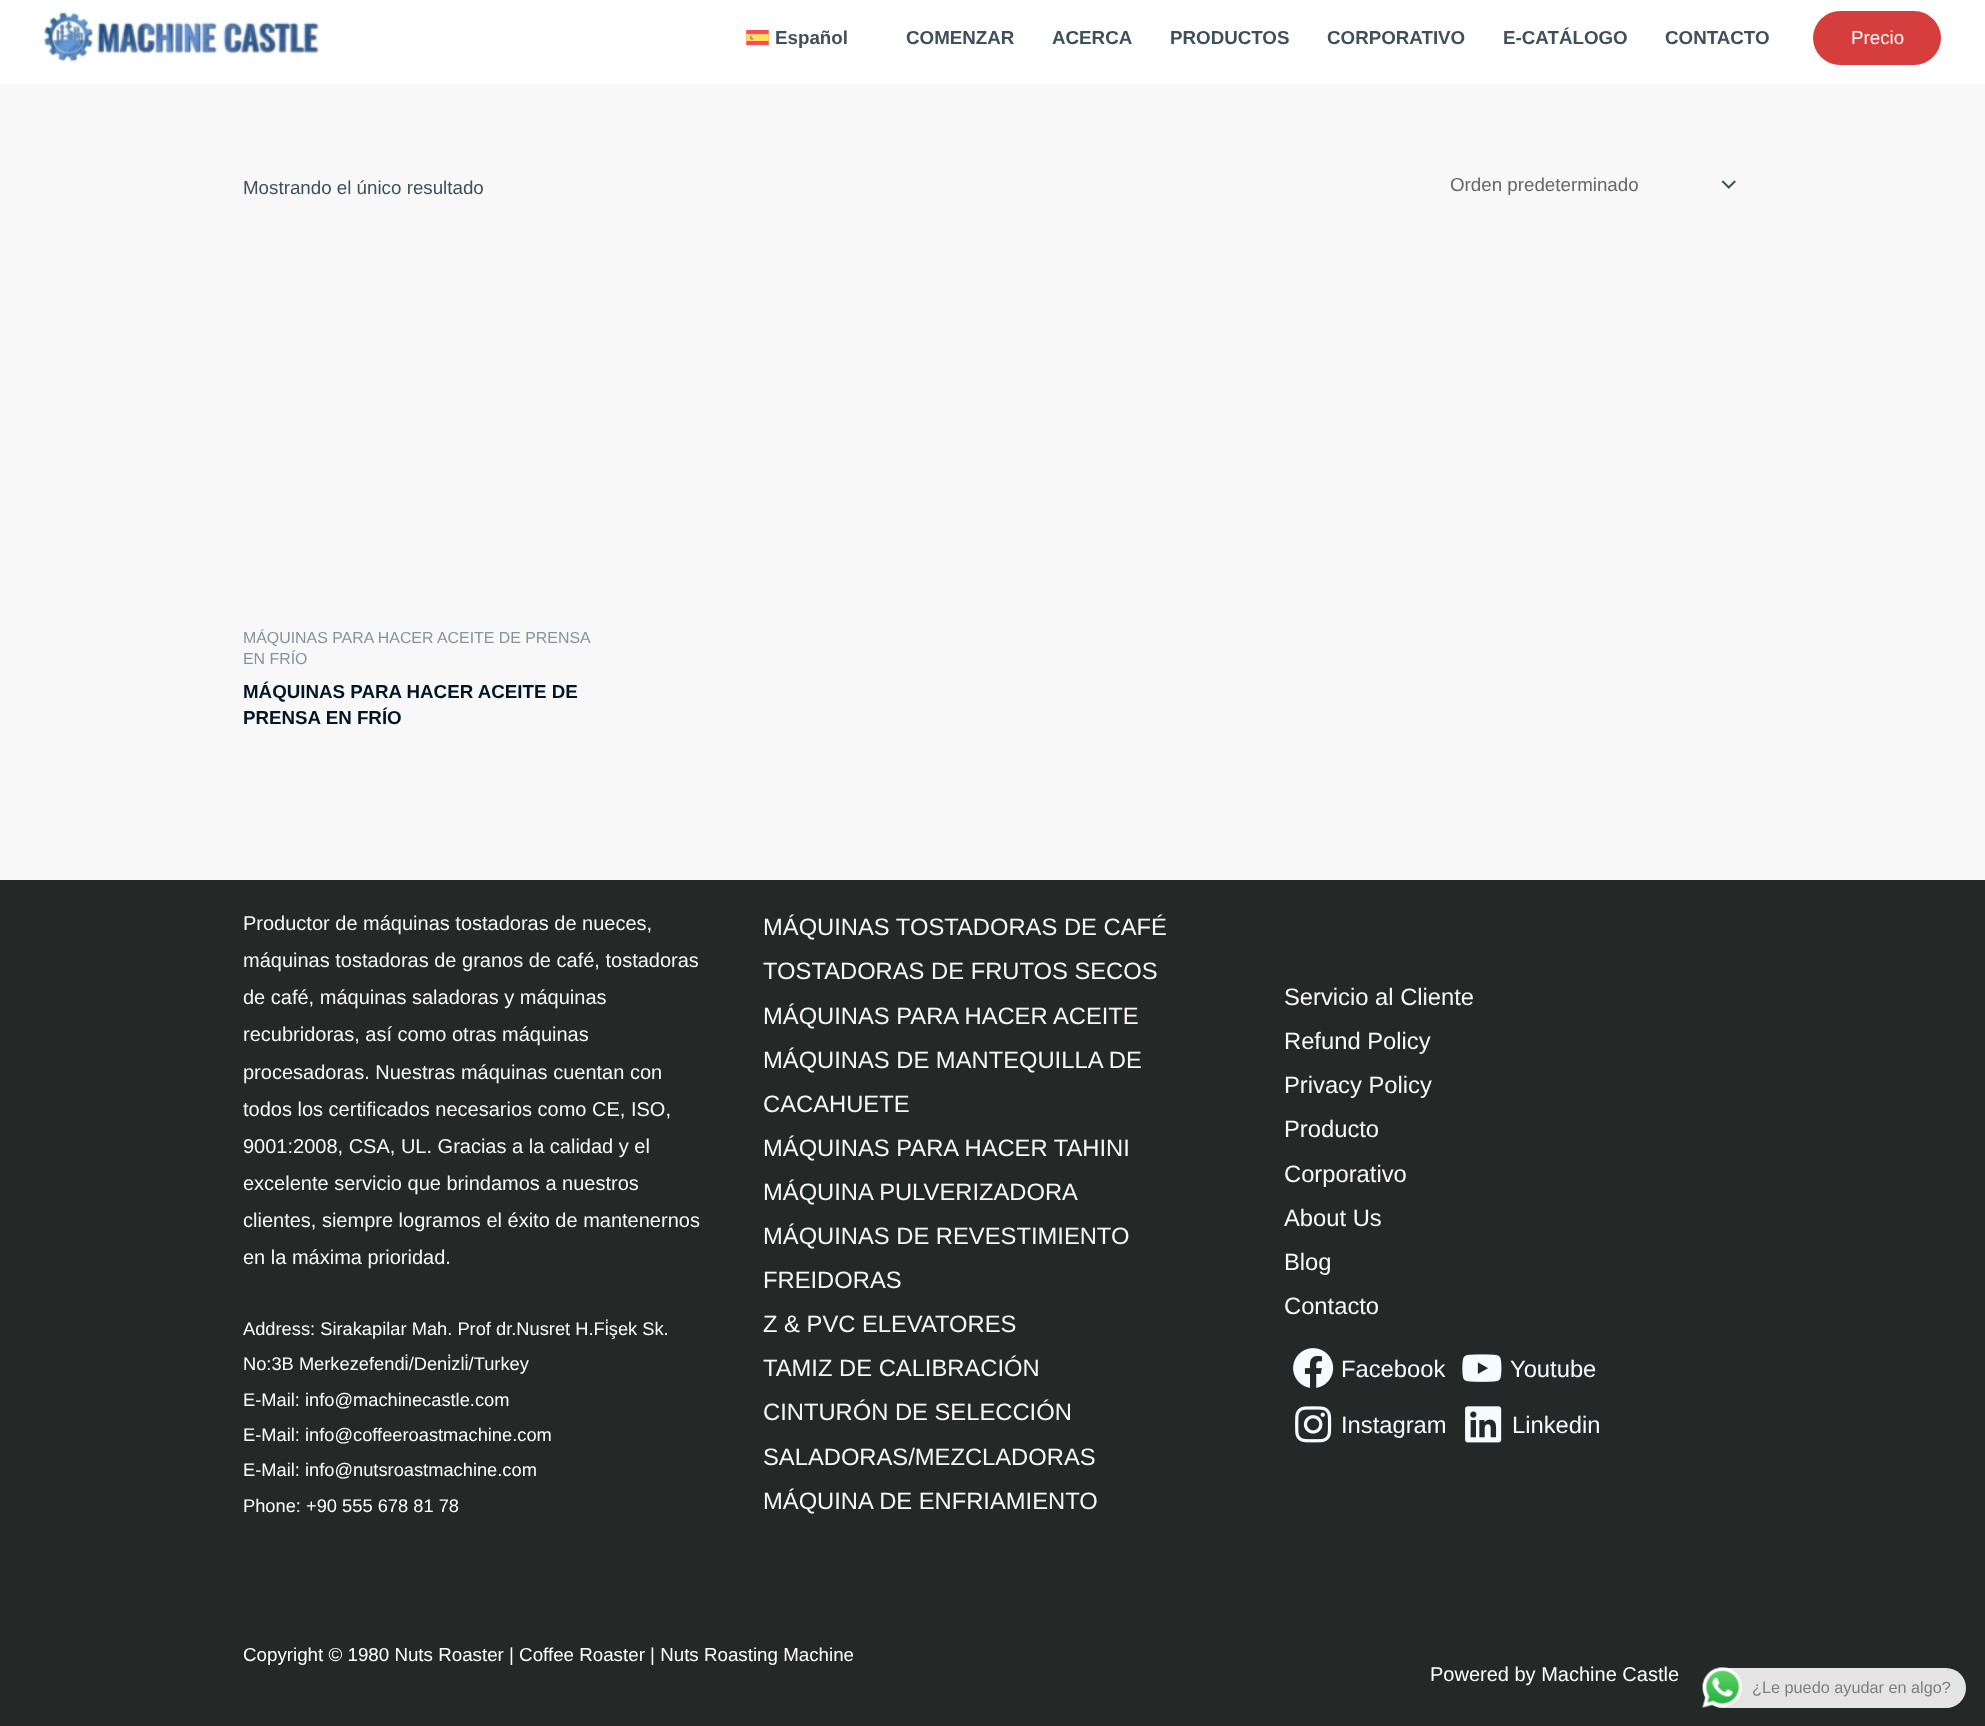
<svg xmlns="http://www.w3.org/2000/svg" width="1985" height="1726">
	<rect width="100%" height="100%" fill="#F9F8F8" />
	<rect x="0" y="0" width="1985" height="84" fill="#FFFFFF" />
	<image x="43" y="11" width="276" height="51" href="assets/img1.png" />
	<image x="746" y="30" width="23" height="15" href="assets/img2.png" />
	<g font-family="Liberation Sans" font-size="18.75" font-weight="700" fill="#3F4F5B">
		<text x="775" y="44">Español</text>
		<text x="906" y="44">COMENZAR</text>
		<text x="1052" y="44">ACERCA</text>
		<text x="1170" y="44">PRODUCTOS</text>
		<text x="1327" y="44">CORPORATIVO</text>
		<text x="1503" y="44">E-CATÁLOGO</text>
		<text x="1665" y="44">CONTACTO</text>
	</g>
	<rect x="1813" y="11" width="128" height="54" rx="27" fill="#D63E3D" />
	<text x="1851" y="44" font-family="Liberation Sans" font-size="18.75" fill="#FFFFFF">Precio</text>
	<text x="243" y="194" font-family="Liberation Sans" font-size="18.75" fill="#3F4F5B">Mostrando el único resultado</text>
	<image x="1721" y="180" width="15" height="9" href="assets/img3.png" />
	<text x="1450" y="191" font-family="Liberation Sans" font-size="18.75" fill="#666666">Orden predeterminado</text>
	<g font-family="Liberation Sans" font-size="15.9" fill="#89929A">
		<text x="243" y="643">MÁQUINAS PARA HACER ACEITE DE PRENSA</text>
		<text x="243" y="664">EN FRÍO</text>
	</g>
	<g font-family="Liberation Sans" font-size="18.75" font-weight="700" fill="#011627">
		<text x="243" y="698">MÁQUINAS PARA HACER ACEITE DE</text>
		<text x="243" y="724">PRENSA EN FRÍO</text>
	</g>
	<rect x="0" y="880" width="1985" height="846" fill="#242826" />
	<g font-family="Liberation Sans" font-size="20" fill="#F9F8F8">
		<text x="243" y="930">Productor de máquinas tostadoras de nueces,</text>
		<text x="243" y="967">máquinas tostadoras de granos de café, tostadoras</text>
		<text x="243" y="1004">de café, máquinas saladoras y máquinas</text>
		<text x="243" y="1041">recubridoras, así como otras máquinas</text>
		<text x="243" y="1079">procesadoras. Nuestras máquinas cuentan con</text>
		<text x="243" y="1116">todos los certificados necesarios como CE, ISO,</text>
		<text x="243" y="1153">9001:2008, CSA, UL. Gracias a la calidad y el</text>
		<text x="243" y="1190">excelente servicio que brindamos a nuestros</text>
		<text x="243" y="1227">clientes, siempre logramos el éxito de mantenernos</text>
		<text x="243" y="1264">en la máxima prioridad.</text>
	</g>
	<g font-family="Liberation Sans" font-size="18.3" fill="#FFFFFF">
		<text x="243" y="1335">Address: Sirakapilar Mah. Prof dr.Nusret H.Fi̇şek Sk.</text>
		<text x="243" y="1370">No:3B Merkezefendi̇/Deni̇zli̇/Turkey</text>
		<text x="243" y="1406">E-Mail: info@machinecastle.com</text>
		<text x="243" y="1441">E-Mail: info@coffeeroastmachine.com</text>
		<text x="243" y="1476">E-Mail: info@nutsroastmachine.com</text>
		<text x="243" y="1512">Phone: +90 555 678 81 78</text>
	</g>
	<g font-family="Liberation Sans" font-size="23.75" fill="#F9F8F8">
		<text x="763" y="935">MÁQUINAS TOSTADORAS DE CAFÉ</text>
		<text x="763" y="979">TOSTADORAS DE FRUTOS SECOS</text>
		<text x="763" y="1024">MÁQUINAS PARA HACER ACEITE</text>
		<text x="763" y="1068">MÁQUINAS DE MANTEQUILLA DE</text>
		<text x="763" y="1112">CACAHUETE</text>
		<text x="763" y="1156">MÁQUINAS PARA HACER TAHINI</text>
		<text x="763" y="1200">MÁQUINA PULVERIZADORA</text>
		<text x="763" y="1244">MÁQUINAS DE REVESTIMIENTO</text>
		<text x="763" y="1288">FREIDORAS</text>
		<text x="763" y="1332">Z &amp; PVC ELEVATORES</text>
		<text x="763" y="1376">TAMIZ DE CALIBRACIÓN</text>
		<text x="763" y="1420">CINTURÓN DE SELECCIÓN</text>
		<text x="763" y="1465">SALADORAS/MEZCLADORAS</text>
		<text x="763" y="1509">MÁQUINA DE ENFRIAMIENTO</text>
		<text x="1284" y="1005">Servicio al Cliente</text>
		<text x="1284" y="1049">Refund Policy</text>
		<text x="1284" y="1093">Privacy Policy</text>
		<text x="1284" y="1137">Producto</text>
		<text x="1284" y="1182">Corporativo</text>
		<text x="1284" y="1226">About Us</text>
		<text x="1284" y="1270">Blog</text>
		<text x="1284" y="1314">Contacto</text>
	</g>
	<image x="1293" y="1348" width="41" height="40" href="assets/img4.png" />
	<text x="1341" y="1377" font-family="Liberation Sans" font-size="23.75" fill="#F5FBFF">Facebook</text>
	<image x="1462" y="1354" width="40" height="28" href="assets/img5.png" />
	<text x="1510" y="1377" font-family="Liberation Sans" font-size="23.75" fill="#F5FBFF">Youtube</text>
	<image x="1295" y="1406" width="37" height="37" href="assets/img6.png" />
	<text x="1341" y="1433" font-family="Liberation Sans" font-size="23.75" fill="#F5FBFF">Instagram</text>
	<image x="1465" y="1406" width="37" height="37" href="assets/img7.png" />
	<text x="1512" y="1433" font-family="Liberation Sans" font-size="23.75" fill="#F5FBFF">Linkedin</text>
	<text x="243" y="1661" font-family="Liberation Sans" font-size="18.75" fill="#FFFFFF">Copyright © 1980 Nuts Roaster | Coffee Roaster | Nuts Roasting Machine</text>
	<text x="1430" y="1681" font-family="Liberation Sans" font-size="20" fill="#FFFFFF">Powered by Machine Castle</text>
	<rect x="1703" y="1668" width="263" height="40" rx="20" fill="#E4E4E4" />
	<image x="1702" y="1667" width="41" height="41" href="assets/img8.png" />
	<text x="1752" y="1693" font-family="Liberation Sans" font-size="16.25" fill="#7F7D7D">¿Le puedo ayudar en algo?</text>
</svg>
